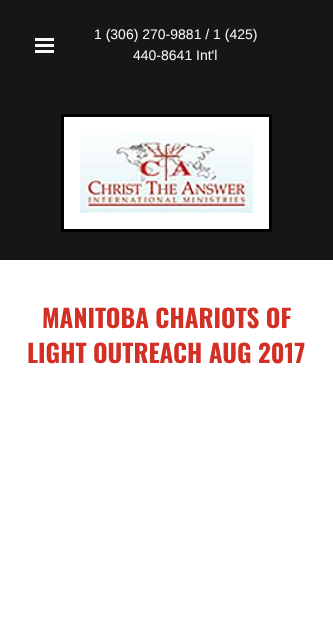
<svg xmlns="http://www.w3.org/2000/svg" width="333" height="639">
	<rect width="100%" height="100%" fill="#161616" />
	<rect x="35" y="38" width="19" height="3" fill="#F7F7F7" />
	<rect x="35" y="44" width="19" height="3" fill="#F7F7F7" />
	<rect x="35" y="50" width="19" height="3" fill="#F7F7F7" />
	<g font-family="Liberation Sans" font-size="14" fill="#F7F7F7">
		<text x="94" y="39">1 (306) 270-9881 / 1 (425)</text>
		<text x="133" y="60">440-8641 Int'l</text>
	</g>
	<rect x="62.5" y="115.5" width="208" height="115" fill="#FFFFFF" stroke="#000000" stroke-width="3" />
	<image x="80" y="133" width="173" height="80" href="assets/img1.png" />
	<rect x="0" y="260" width="333" height="379" fill="#FFFFFF" />
	<g font-family="Oswald" font-size="25" font-weight="700" fill="#D22F25">
		<text x="42" y="328">MANITOBA CHARIOTS OF</text>
		<text x="27" y="363">LIGHT OUTREACH AUG 2017</text>
	</g>
</svg>
